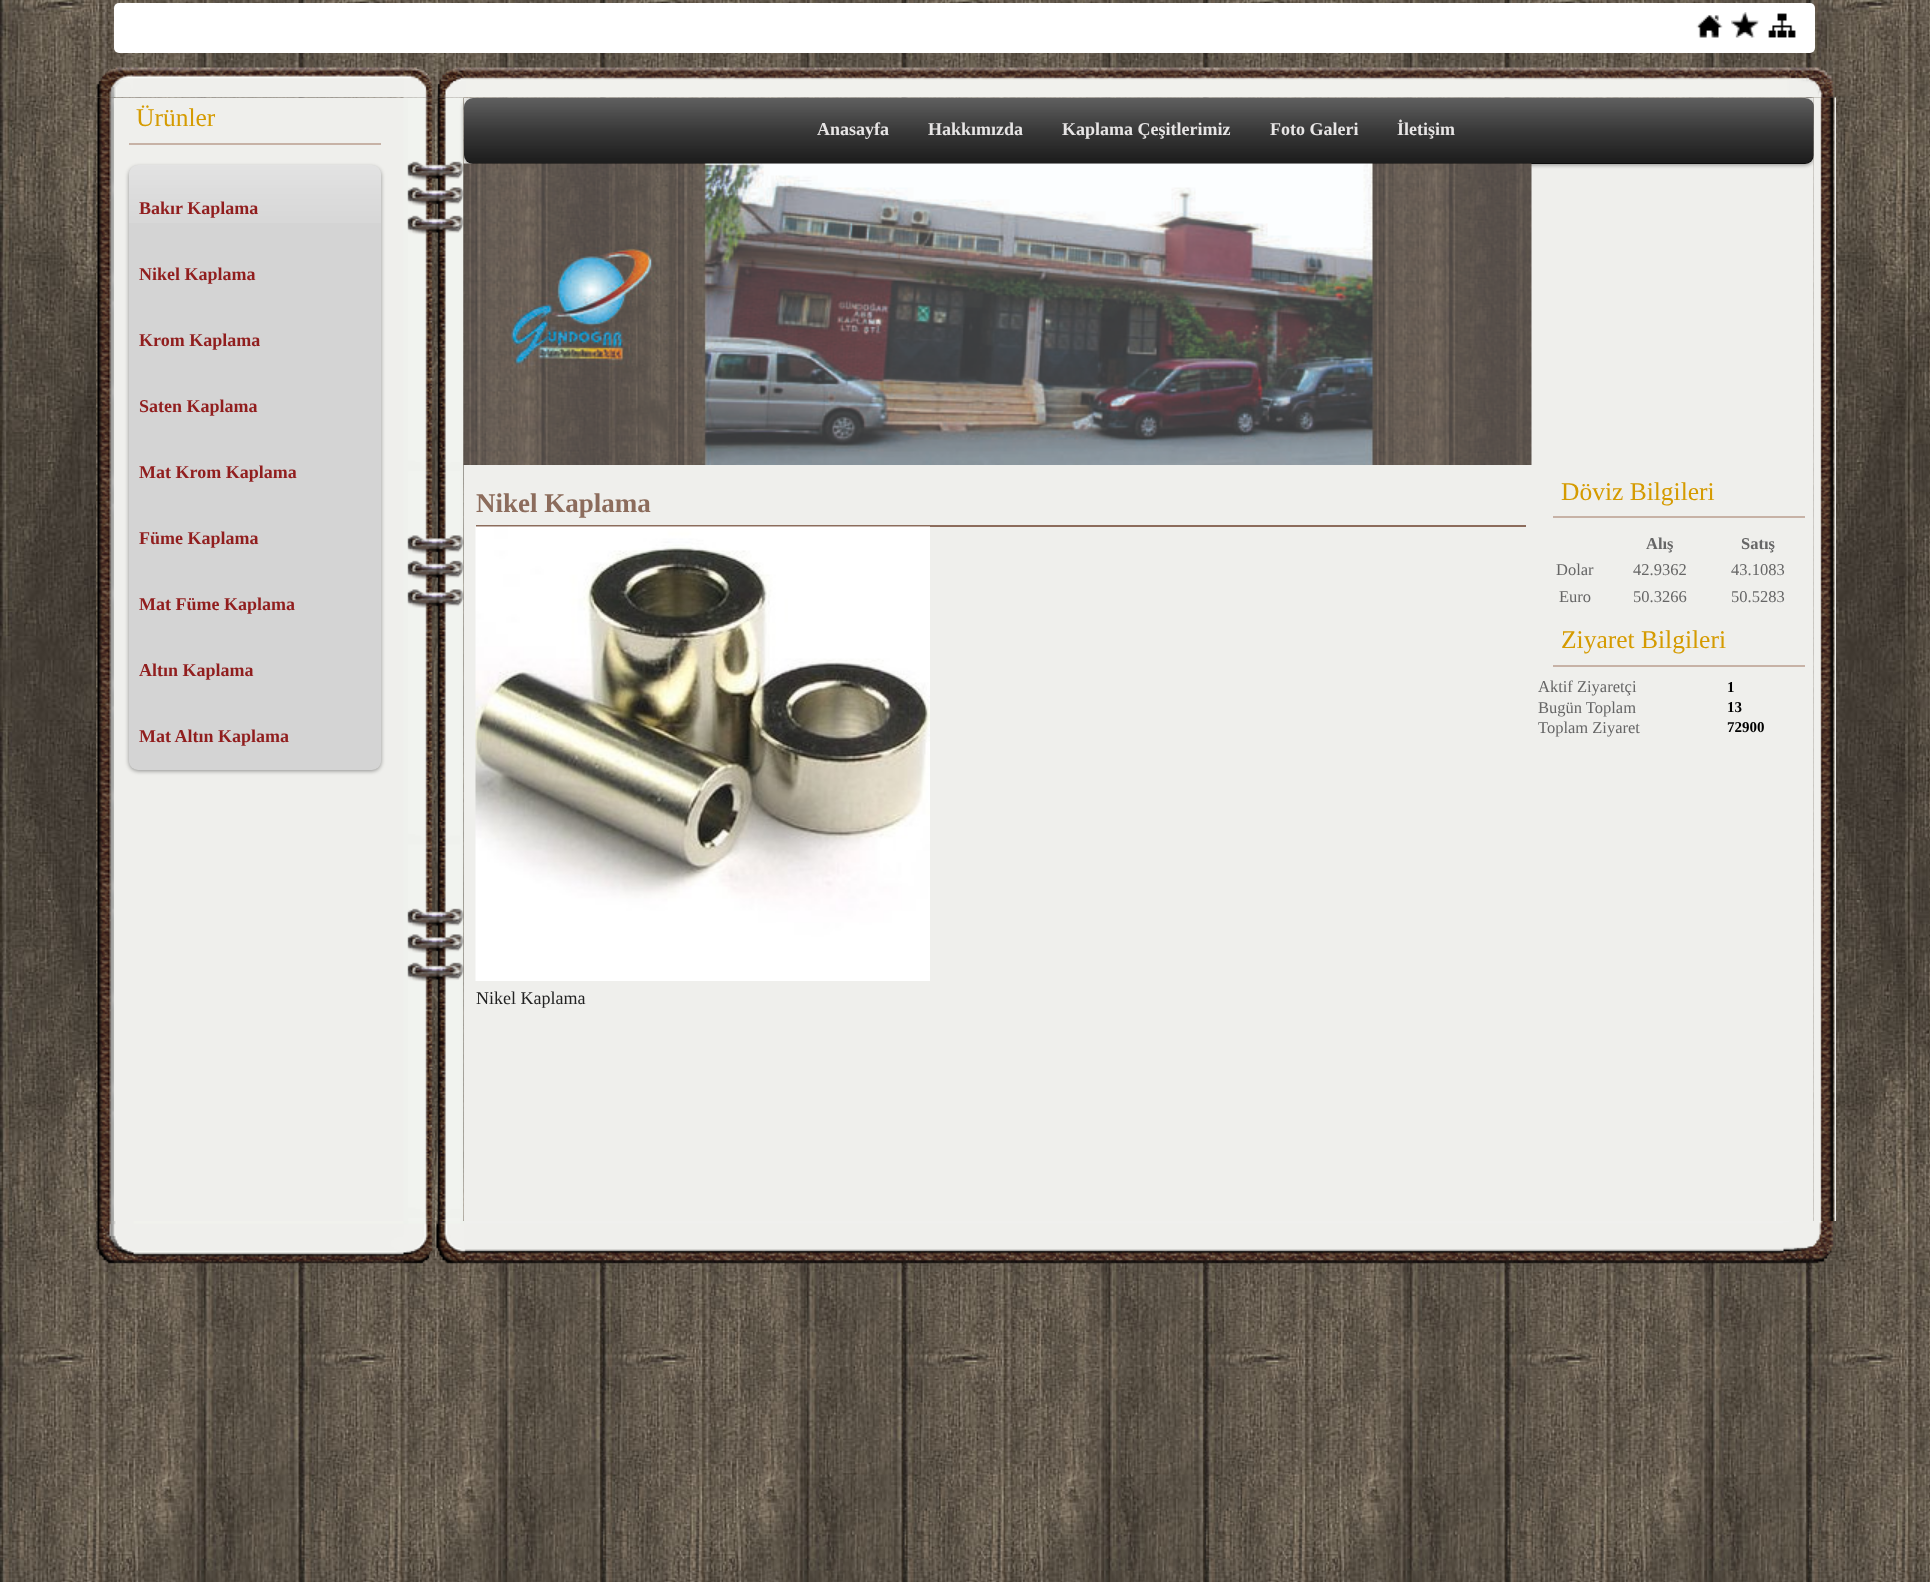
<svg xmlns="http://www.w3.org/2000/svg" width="1930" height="1582">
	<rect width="100%" height="100%" fill="#FFFFFF" />
	<image x="0" y="0" width="1930" height="1582" href="assets/img1.png" />
	<rect x="114" y="3" width="1701" height="50" rx="5" fill="#FFFFFF" />
	<image x="1696" y="14" width="27" height="24" href="assets/img2.png" />
	<image x="1731" y="12" width="29" height="26" href="assets/img3.png" />
	<image x="1768" y="13" width="28" height="25" href="assets/img4.png" />
	<image x="96" y="97" width="18" height="1124" href="assets/img6.png" />
	<rect x="114" y="98" width="290" height="1123" fill="#EFEFEC" />
	<image x="403" y="97" width="61" height="1124" href="assets/img8.png" />
	<rect x="464" y="98" width="1350" height="1123" fill="#EFEFEC" />
	<rect x="464" y="99" width="1350" height="66" rx="9" fill="#000000" fill-opacity="0.4" filter="blur(2px)" />
	<rect x="464" y="98" width="1350" height="66" rx="9" fill="#0D0D0D" />
	<image x="463" y="97" width="1351" height="66" href="assets/img9.png" />
	<image x="1813" y="97" width="23" height="1124" href="assets/img12.png" />
	<image x="96" y="67" width="1738" height="31" href="assets/img5.png" />
	<rect x="129" y="143" width="252" height="2" fill="#C7B2A6" />
	<text x="136" y="126" font-family="Liberation Serif" font-size="25.5" fill="#D59B00">Ürünler</text>
	<rect x="129" y="167" width="252" height="604" rx="9" fill="#000000" fill-opacity="0.4" filter="blur(2px)" />
	<rect x="129" y="165" width="252" height="605" rx="9" fill="#D4D4D4" />
	<image x="129" y="165" width="252" height="58" href="assets/img7.png" />
	<g font-family="Liberation Serif" font-size="18" font-weight="700" fill="#911E1E">
		<text x="139" y="214">Bakır Kaplama</text>
		<text x="139" y="280">Nikel Kaplama</text>
		<text x="139" y="346">Krom Kaplama</text>
		<text x="139" y="412">Saten Kaplama</text>
		<text x="139" y="478">Mat Krom Kaplama</text>
		<text x="139" y="544">Füme Kaplama</text>
		<text x="139" y="610">Mat Füme Kaplama</text>
		<text x="139" y="676">Altın Kaplama</text>
		<text x="139" y="742">Mat Altın Kaplama</text>
	</g>
	<g font-family="Liberation Serif" font-size="18" font-weight="700" fill="#E7E5E5">
		<text x="817" y="135">Anasayfa</text>
		<text x="928" y="135">Hakkımızda</text>
		<text x="1062" y="135">Kaplama Çeşitlerimiz</text>
		<text x="1270" y="135">Foto Galeri</text>
		<text x="1397" y="135">İletişim</text>
	</g>
	<image x="463" y="163" width="1069" height="302" href="assets/img10.png" />
	<rect x="476" y="525" width="1050" height="2" fill="#8C6C5C" />
	<text x="476" y="512" font-family="Liberation Serif" font-size="27" font-weight="700" fill="#8C6C5C">Nikel Kaplama</text>
	<image x="475" y="526" width="455" height="455" href="assets/img11.png" />
	<text x="476" y="1004" font-family="Liberation Serif" font-size="18" fill="#222222">Nikel Kaplama</text>
	<rect x="1553" y="516" width="252" height="2" fill="#C7B2A6" />
	<text x="1561" y="500" font-family="Liberation Serif" font-size="25.5" fill="#D59B00">Döviz Bilgileri</text>
	<g font-family="Liberation Serif" font-size="16.5" font-weight="700" fill="#666666">
		<text x="1646" y="549">Alış</text>
		<text x="1741" y="549">Satış</text>
	</g>
	<g font-family="Liberation Serif" font-size="16.5" fill="#666666">
		<text x="1556" y="575">Dolar</text>
		<text x="1633" y="575">42.9362</text>
		<text x="1731" y="575">43.1083</text>
		<text x="1559" y="602">Euro</text>
		<text x="1633" y="602">50.3266</text>
		<text x="1731" y="602">50.5283</text>
	</g>
	<rect x="1553" y="665" width="252" height="2" fill="#C7B2A6" />
	<text x="1561" y="648" font-family="Liberation Serif" font-size="25.5" fill="#D59B00">Ziyaret Bilgileri</text>
	<text x="1538" y="692" font-family="Liberation Serif" font-size="16.5" fill="#666666">Aktif Ziyaretçi</text>
	<text x="1727" y="692" font-family="Liberation Serif" font-size="15" font-weight="700" fill="#000000">1</text>
	<text x="1538" y="713" font-family="Liberation Serif" font-size="16.5" fill="#666666">Bugün Toplam</text>
	<text x="1727" y="712" font-family="Liberation Serif" font-size="15" font-weight="700" fill="#000000">13</text>
	<text x="1538" y="733" font-family="Liberation Serif" font-size="16.5" fill="#666666">Toplam Ziyaret</text>
	<text x="1727" y="732" font-family="Liberation Serif" font-size="15" font-weight="700" fill="#000000">72900</text>
	<image x="96" y="1221" width="1739" height="43" href="assets/img13.png" />
</svg>
